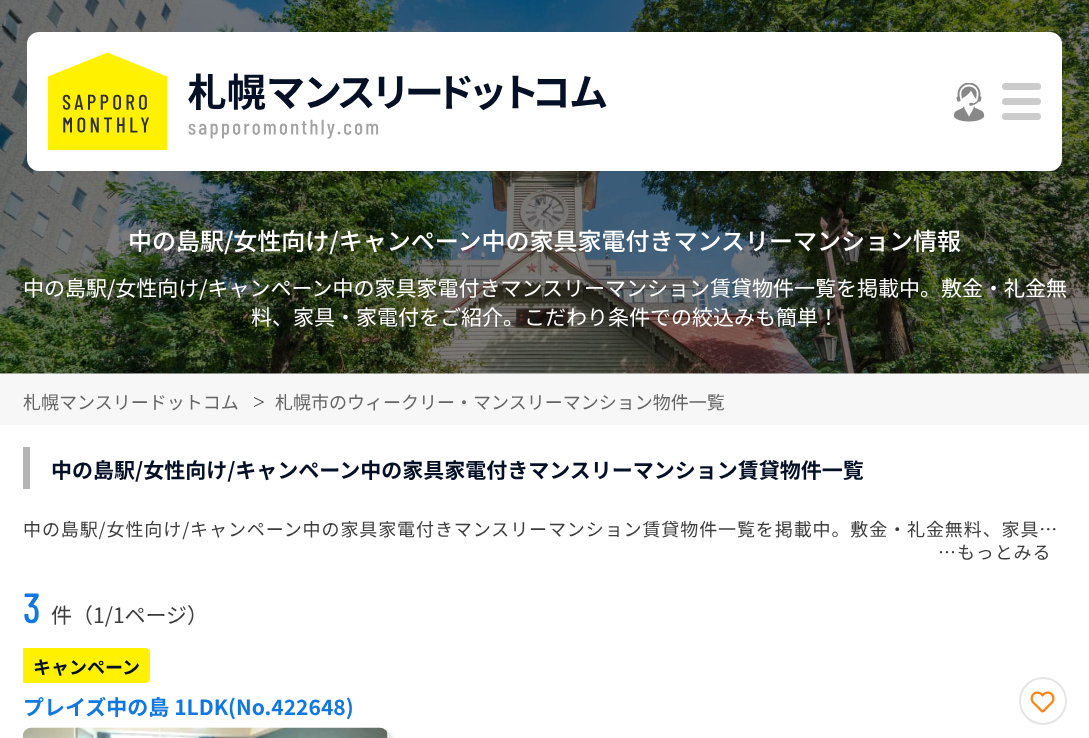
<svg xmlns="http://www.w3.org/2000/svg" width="1089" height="738">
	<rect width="100%" height="100%" fill="#FFFFFF" />
	<image x="0" y="0" width="1089" height="374" href="assets/img1.png" />
	<rect x="27" y="32" width="1035" height="139" rx="12" fill="#FFFFFF" />
	<image x="48" y="53" width="559" height="97" href="assets/img2.png" />
	<image x="953" y="83" width="32" height="39" href="assets/img3.png" />
	<rect x="1002" y="83" width="39" height="7" rx="3.5" fill="#CCCCCC" />
	<rect x="1002" y="98" width="39" height="7" rx="3.5" fill="#CCCCCC" />
	<rect x="1002" y="113" width="39" height="7" rx="3.5" fill="#CCCCCC" />
	<text x="128" y="250" font-family="Noto Sans JP" font-size="24" font-weight="500" fill="#FFFFFF">中の島駅/女性向け/キャンペーン中の家具家電付きマンスリーマンション情報</text>
	<g font-family="Noto Sans JP" font-size="21" fill="#FFFFFF">
		<text x="23" y="296">中の島駅/女性向け/キャンペーン中の家具家電付きマンスリーマンション賃貸物件一覧を掲載中。敷金・礼金無</text>
		<text x="251" y="325">料、家具・家電付をご紹介。こだわり条件での絞込みも簡単！</text>
	</g>
	<rect x="0" y="374" width="1089" height="51" fill="#F7F7F7" />
	<text x="23" y="409" font-family="Noto Sans JP" font-size="18" fill="#656565">札幌マンスリードットコム</text>
	<text x="253" y="409" font-family="Liberation Serif" font-size="21" fill="#3D3D3D">&gt;</text>
	<text x="275" y="409" font-family="Noto Sans JP" font-size="18" fill="#656565">札幌市のウィークリー・マンスリーマンション物件一覧</text>
	<rect x="23" y="447" width="7" height="42" fill="#B5B5B5" />
	<text x="51" y="478" font-family="Noto Sans JP" font-size="21" font-weight="700" fill="#041025">中の島駅/女性向け/キャンペーン中の家具家電付きマンスリーマンション賃貸物件一覧</text>
	<g font-family="Noto Sans JP" font-size="18" letter-spacing="0.9" fill="#3D3D3D">
		<text x="23" y="536">中の島駅/女性向け/キャンペーン中の家具家電付きマンスリーマンション賃貸物件一覧を掲載中。敷金・礼金無料、家具…</text>
		<text x="938" y="559">…もっとみる</text>
	</g>
	<text x="23" y="623" font-family="Barlow Condensed" font-size="42" font-weight="500" letter-spacing="2" fill="#1078E0">3</text>
	<text x="51" y="623" font-family="Noto Sans JP" font-size="21" fill="#3D3D3D">件（1/1ページ）</text>
	<path d="M23 648H145C148 648 150 650 150 653V678C150 681 148 683 145 683H23Z" fill="#FFF100" />
	<text x="33" y="674" font-family="Noto Sans JP" font-size="18" font-weight="700" fill="#041025">キャンペーン</text>
	<text x="23" y="715" font-family="Noto Sans JP" font-size="21" font-weight="700" fill="#1078E0">プレイズ中の島 1LDK(No.422648)</text>
	<circle cx="1043" cy="701" r="23" fill="none" stroke="#E5E5E5" stroke-width="2" />
	<image x="1030" y="691" width="25" height="22" href="assets/img4.png" />
	<rect x="26" y="731" width="366" height="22" rx="9" fill="#D7D7D7" filter="blur(2px)" />
	<rect x="23" y="728" width="366" height="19" rx="9" fill="#F7F7F7" />
	<image x="22" y="727" width="366" height="11" href="assets/img5.png" />
</svg>
